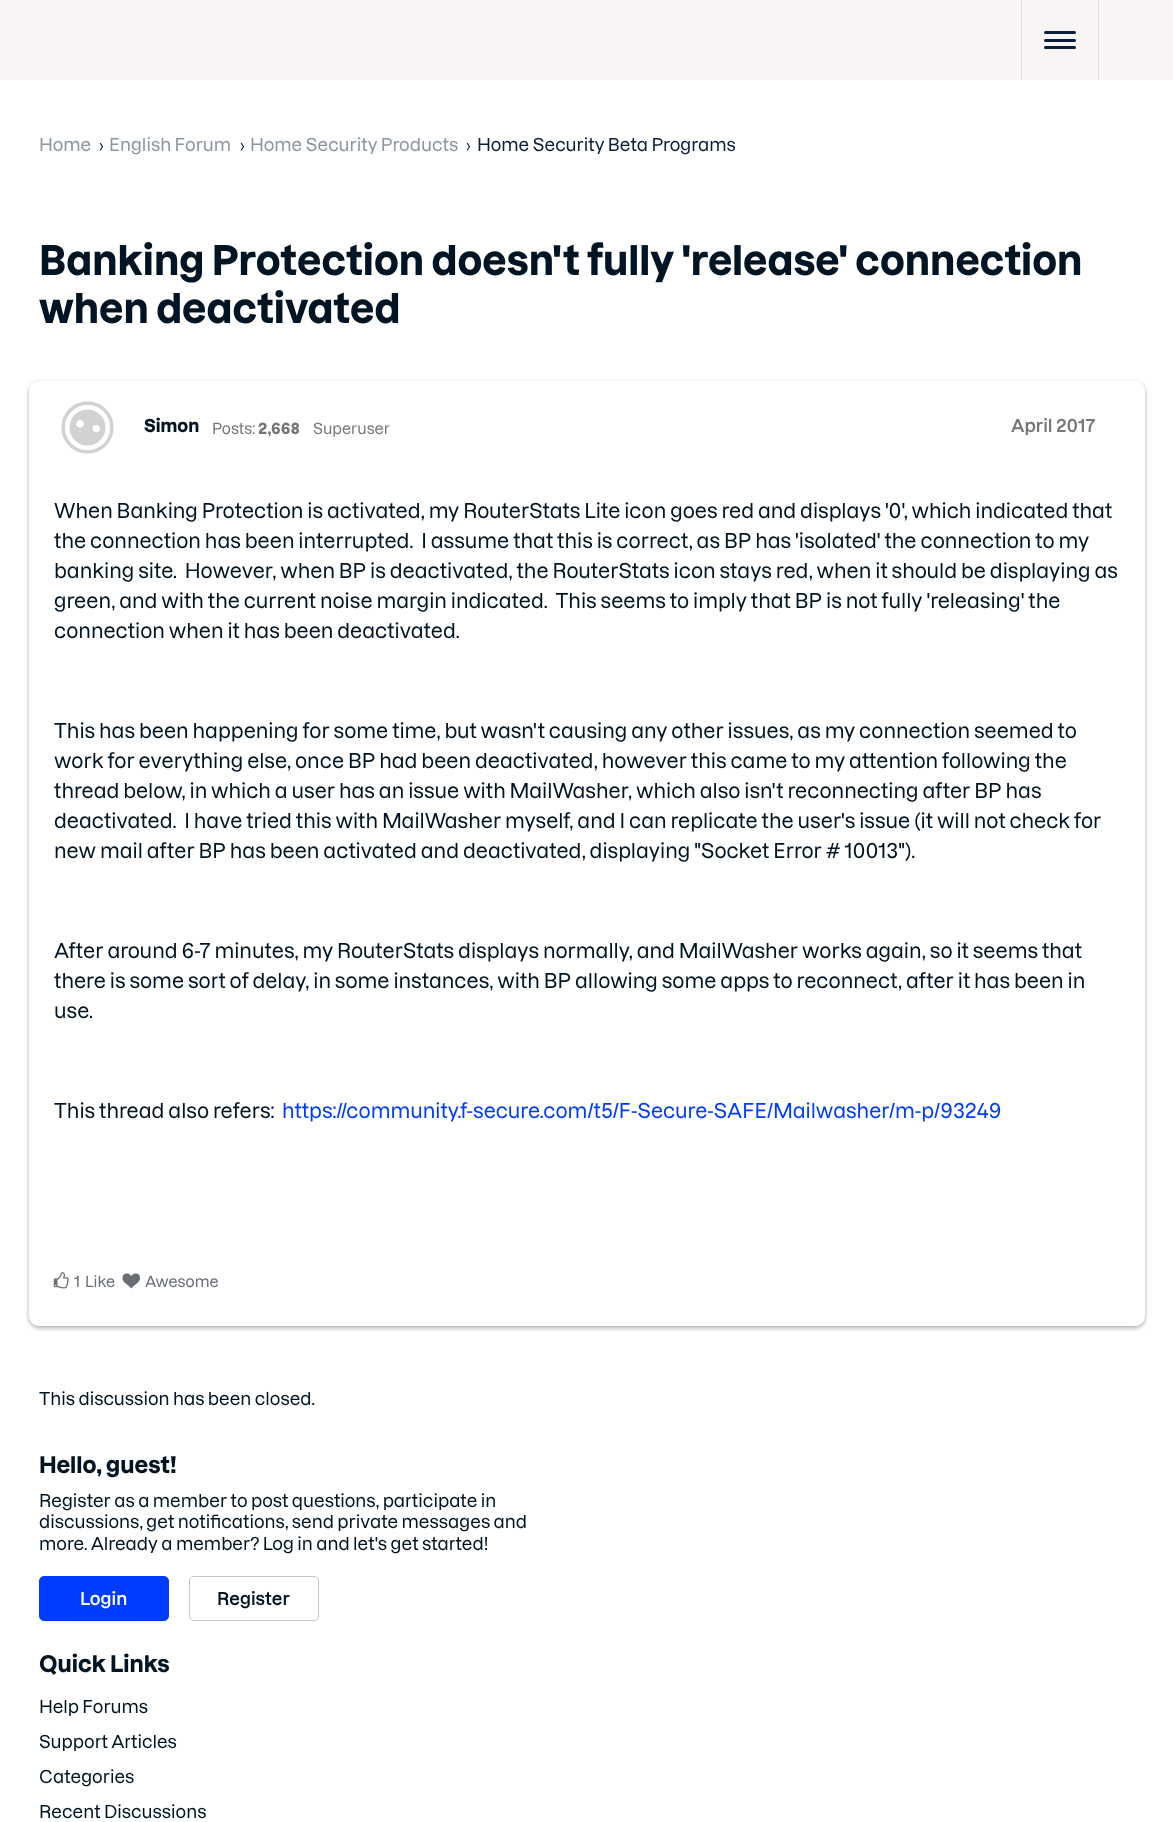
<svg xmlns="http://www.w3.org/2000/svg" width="1173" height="1822">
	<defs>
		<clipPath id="clip1"><path d="M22 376H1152V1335H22ZM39 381H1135C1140.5 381 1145 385.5 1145 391V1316C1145 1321.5 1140.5 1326 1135 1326H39C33.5 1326 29 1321.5 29 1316V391C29 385.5 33.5 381 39 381Z" clip-rule="evenodd" /></clipPath>
	</defs>
	<rect width="100%" height="100%" fill="#FFFFFF" />
	<rect x="0" y="0" width="1173" height="80" fill="#FAF5F5" />
	<rect x="1098" y="0" width="1" height="80" fill="#DEDEDE" />
	<rect x="1021" y="0" width="1" height="80" fill="#DEDEDE" />
	<rect x="1044" y="39" width="32" height="3" rx="1.5" fill="#0A1E3C" />
	<rect x="1044" y="31" width="32" height="3" rx="1.5" fill="#0A1E3C" />
	<rect x="1044" y="46" width="32" height="3" rx="1.5" fill="#0A1E3C" />
	<text x="39" y="151" font-family="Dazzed" font-size="17.5" font-weight="500" fill="#8C96A0">Home</text>
	<text x="99" y="151" font-family="Dazzed" font-size="15" font-weight="500" fill="#001423">›</text>
	<text x="109" y="151" font-family="Dazzed" font-size="17.5" font-weight="500" fill="#8C96A0">English Forum</text>
	<text x="240" y="151" font-family="Dazzed" font-size="15" font-weight="500" fill="#001423">›</text>
	<text x="250" y="151" font-family="Dazzed" font-size="17.5" font-weight="500" fill="#8C96A0">Home Security Products</text>
	<text x="466" y="151" font-family="Dazzed" font-size="15" font-weight="500" fill="#001423">›</text>
	<text x="477" y="151" font-family="Dazzed" font-size="17.5" font-weight="500" fill="#0A1E3C">Home Security Beta Programs</text>
	<g font-family="Dazzed" font-size="40" font-weight="700" fill="#001423">
		<text x="39" y="275">Banking Protection doesn't fully 'release' connection</text>
		<text x="39" y="323">when deactivated</text>
	</g>
	<g clip-path="url(#clip1)">
		<rect x="29" y="383" width="1116" height="945" rx="10" fill="#ACACAC" filter="blur(2px)" />
	</g>
	<image x="61" y="401" width="53" height="53" href="assets/img1.png" />
	<text x="144" y="432" font-family="Dazzed" font-size="17.5" font-weight="700" fill="#001423">Simon</text>
	<text x="212" y="434" font-family="Dazzed" font-size="15" font-weight="500" fill="#767676">Posts:</text>
	<text x="258" y="434" font-family="Dazzed" font-size="15" font-weight="700" fill="#767676">2,668</text>
	<text x="313" y="434" font-family="Dazzed" font-size="15" font-weight="500" fill="#767676">Superuser</text>
	<text x="1011" y="432" font-family="Dazzed" font-size="17.5" font-weight="600" fill="#767676">April 2017</text>
	<g font-family="Dazzed" font-size="20" font-weight="500" fill="#001423">
		<text x="54" y="518">When Banking Protection is activated, my RouterStats Lite icon goes red and displays '0', which indicated that</text>
		<text x="54" y="548" xml:space="preserve">the connection has been interrupted.  I assume that this is correct, as BP has 'isolated' the connection to my</text>
		<text x="54" y="578" xml:space="preserve">banking site.  However, when BP is deactivated, the RouterStats icon stays red, when it should be displaying as</text>
		<text x="54" y="608" xml:space="preserve">green, and with the current noise margin indicated.  This seems to imply that BP is not fully 'releasing' the</text>
		<text x="54" y="638">connection when it has been deactivated.</text>
		<text x="54" y="738">This has been happening for some time, but wasn't causing any other issues, as my connection seemed to</text>
		<text x="54" y="768">work for everything else, once BP had been deactivated, however this came to my attention following the</text>
		<text x="54" y="798">thread below, in which a user has an issue with MailWasher, which also isn't reconnecting after BP has</text>
		<text x="54" y="828" xml:space="preserve">deactivated.  I have tried this with MailWasher myself, and I can replicate the user's issue (it will not check for</text>
		<text x="54" y="858">new mail after BP has been activated and deactivated, displaying "Socket Error # 10013").</text>
		<text x="54" y="958">After around 6-7 minutes, my RouterStats displays normally, and MailWasher works again, so it seems that</text>
		<text x="54" y="988">there is some sort of delay, in some instances, with BP allowing some apps to reconnect, after it has been in</text>
		<text x="54" y="1018">use.</text>
		<text x="54" y="1118">This thread also refers:</text>
	</g>
	<text x="282" y="1118" font-family="Dazzed" font-size="20" font-weight="500" fill="#003CFF">https://community.f-secure.com/t5/F-Secure-SAFE/Mailwasher/m-p/93249</text>
	<image x="53" y="1272" width="16" height="17" href="assets/img2.png" />
	<g font-family="Dazzed" font-size="15" font-weight="500" fill="#696E75">
		<text x="74" y="1287">1</text>
		<text x="85" y="1287">Like</text>
	</g>
	<image x="122" y="1273" width="18" height="16" href="assets/img3.png" />
	<text x="145" y="1287" font-family="Dazzed" font-size="15" font-weight="500" fill="#696E75">Awesome</text>
	<text x="39" y="1405" font-family="Dazzed" font-size="17.5" font-weight="500" fill="#001423">This discussion has been closed.</text>
	<text x="39" y="1473" font-family="Dazzed" font-size="22.5" font-weight="700" fill="#001423">Hello, guest!</text>
	<g font-family="Dazzed" font-size="17.5" font-weight="500" fill="#001423">
		<text x="39" y="1507">Register as a member to post questions, participate in</text>
		<text x="39" y="1528">discussions, get notifications, send private messages and</text>
		<text x="39" y="1550">more. Already a member? Log in and let's get started!</text>
	</g>
	<rect x="39.5" y="1576.5" width="129" height="44" rx="4.5" fill="#003CFF" stroke="#003CFF" />
	<text x="80" y="1605" font-family="Dazzed" font-size="17.5" font-weight="600" fill="#FFFFFF">Login</text>
	<rect x="189.5" y="1576.5" width="129" height="44" rx="4.5" fill="none" stroke="#C2C7CA" />
	<text x="217" y="1605" font-family="Dazzed" font-size="17.5" font-weight="600" fill="#001423">Register</text>
	<text x="39" y="1672" font-family="Dazzed" font-size="22.5" font-weight="700" fill="#001423">Quick Links</text>
	<g font-family="Dazzed" font-size="17.5" font-weight="500" fill="#001423">
		<text x="39" y="1713">Help Forums</text>
		<text x="39" y="1748">Support Articles</text>
		<text x="39" y="1783">Categories</text>
		<text x="39" y="1818">Recent Discussions</text>
	</g>
</svg>
